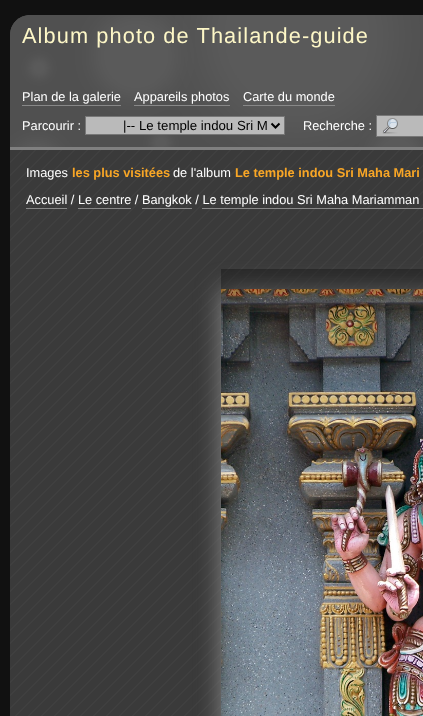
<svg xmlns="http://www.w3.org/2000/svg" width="423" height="716">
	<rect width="100%" height="100%" fill="#111111" />
	<path d="M30 15H423C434 15 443 24 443 35V150H10V35C10 24 19 15 30 15Z" fill="#505050" />
	<image x="10" y="15" width="413" height="132" href="assets/img1.png" />
	<rect x="10" y="147" width="413" height="3" fill="#808080" />
	<text x="22" y="43" font-family="Liberation Sans" font-size="21.75" letter-spacing="1.1" fill="#FDF7C7">Album photo de Thailande-guide</text>
	<text x="22" y="101" font-family="Liberation Sans" font-size="12.8" fill="#FFFFFF">Plan de la galerie</text>
	<rect x="22" y="105" width="99" height="1" fill="#888888" />
	<text x="134" y="101" font-family="Liberation Sans" font-size="12.8" fill="#FFFFFF">Appareils photos</text>
	<rect x="134" y="105" width="96" height="1" fill="#888888" />
	<text x="243" y="101" font-family="Liberation Sans" font-size="12.8" fill="#FFFFFF">Carte du monde</text>
	<rect x="243" y="105" width="92" height="1" fill="#888888" />
	<text x="22" y="130" font-family="Liberation Sans" font-size="12.8" fill="#FFFFFF">Parcourir :</text>
	<rect x="85.5" y="116.5" width="199" height="18" fill="#BABABA" stroke="#777777" />
	<path d="M271.5 123.5L275.5 127.5L279.5 123.5" fill="none" stroke="#000000" stroke-width="2" />
	<text x="123" y="130" font-family="Liberation Sans" font-size="13.25" fill="#000000">|-- Le temple indou Sri M</text>
	<text x="303" y="130" font-family="Liberation Sans" font-size="12.8" fill="#FFFFFF">Recherche :</text>
	<rect x="377" y="116" width="46" height="20" fill="#BABABA" />
	<image x="382" y="118" width="16" height="16" href="assets/img2.png" />
	<rect x="376.5" y="115.5" width="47" height="21" fill="none" stroke="#777777" />
	<rect x="10" y="150" width="413" height="566" fill="#3A3A3A" />
	<image x="10" y="150" width="413" height="566" href="assets/img3.png" />
	<text x="26" y="177" font-family="Liberation Sans" font-size="12.8" fill="#FFFFFF">Images</text>
	<text x="72" y="177" font-family="Liberation Sans" font-size="12.8" font-weight="700" fill="#F8A626">les plus visitées</text>
	<text x="173" y="177" font-family="Liberation Sans" font-size="12.8" fill="#FFFFFF">de l'album</text>
	<text x="235" y="177" font-family="Liberation Sans" font-size="12.8" font-weight="700" fill="#F8A626">Le temple indou Sri Maha Mari</text>
	<text x="26" y="204" font-family="Liberation Sans" font-size="12.8" fill="#FFFFFF">Accueil / Le centre / Bangkok / Le temple indou Sri Maha Mariamman</text>
	<rect x="26" y="208" width="41" height="1" fill="#888888" />
	<rect x="78" y="208" width="53" height="1" fill="#888888" />
	<rect x="142" y="208" width="50" height="1" fill="#888888" />
	<rect x="202" y="208" width="221" height="1" fill="#888888" />
	<rect x="221" y="289" width="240" height="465" fill="#888888" filter="blur(12.5px)" />
	<image x="221" y="289" width="202" height="427" href="assets/img4.png" />
	<rect x="221" y="269" width="202" height="20" fill="#000000" fill-opacity="0.3" />
</svg>
